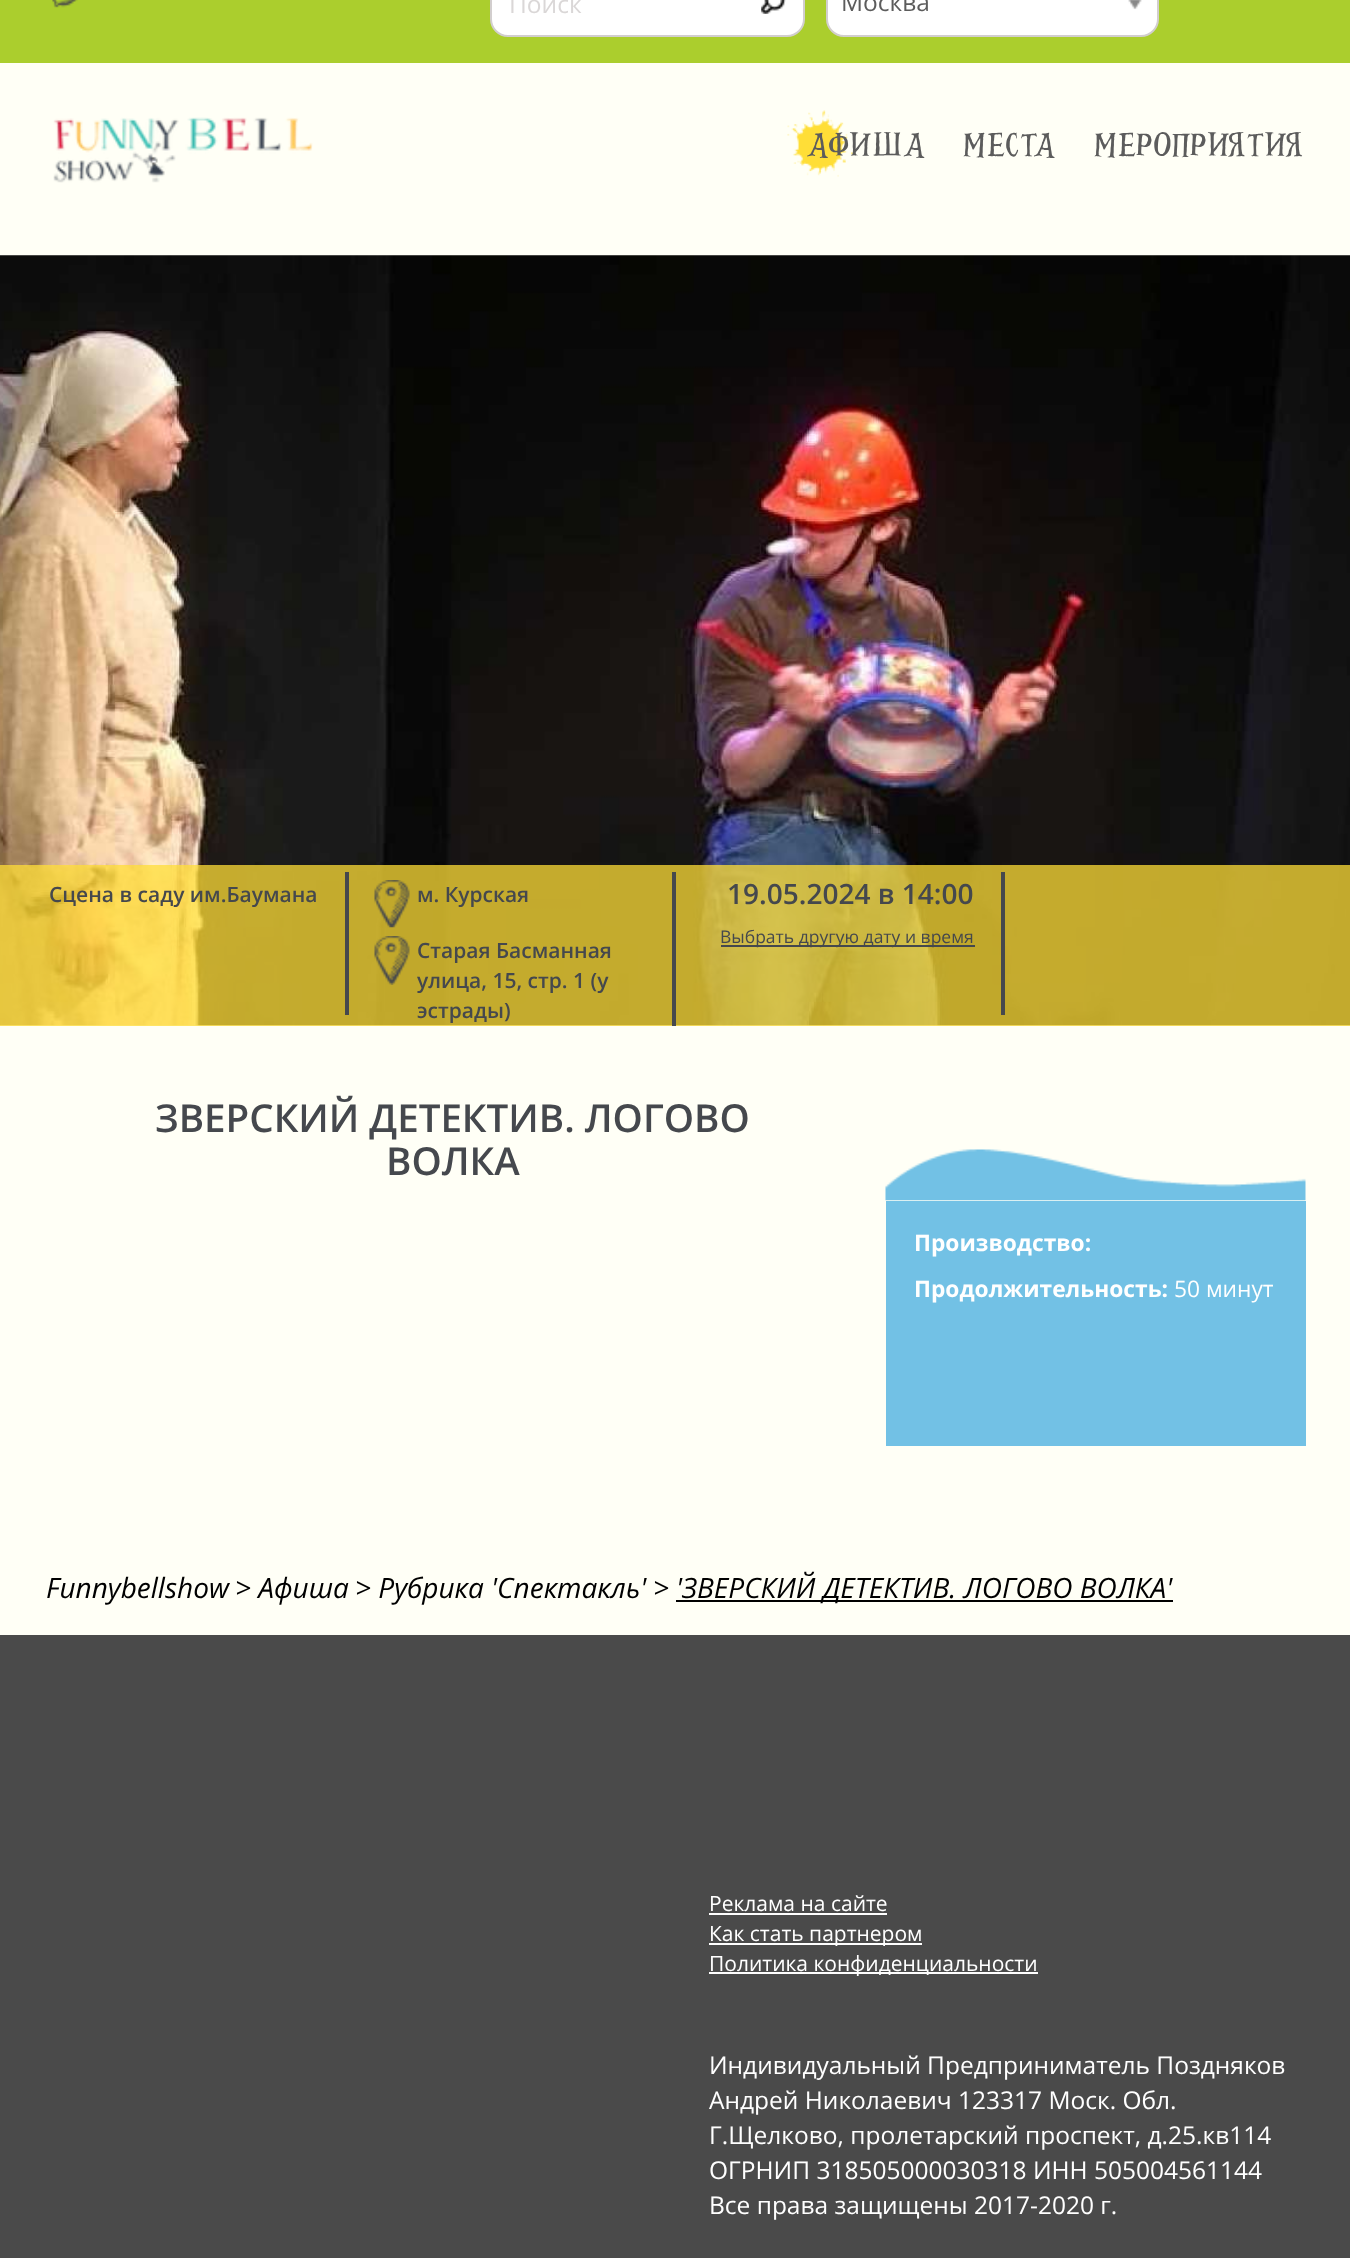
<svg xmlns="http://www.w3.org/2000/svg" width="1350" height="2258">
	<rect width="100%" height="100%" fill="#FFFFF6" />
	<rect x="0" y="0" width="1350" height="63" fill="#ABCE2D" />
	<image x="52" y="0" width="26" height="8" href="assets/img1.png" />
	<rect x="491" y="-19" width="313" height="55" rx="17" fill="#FFFFFF" stroke="#D2CECE" stroke-width="2" />
	<text x="509" y="13" font-family="Open Sans" font-size="24.5" fill="#DAD7D7">Поиск</text>
	<image x="761" y="0" width="25" height="14" href="assets/img2.png" />
	<rect x="827" y="-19" width="331" height="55" rx="17" fill="#FFFFFF" stroke="#D2CECE" stroke-width="2" />
	<text x="841" y="11" font-family="Open Sans" font-size="24.5" fill="#5C5C5C">Москва</text>
	<image x="1128" y="0" width="14" height="10" href="assets/img3.png" />
	<image x="53" y="117" width="260" height="66" href="assets/img4.png" />
	<image x="787" y="110" width="67" height="67" href="assets/img5.png" />
	<g font-family="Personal" font-size="42" fill="#5C5C5C">
		<text x="805" y="156">АФИША</text>
		<text x="963" y="156">МЕСТА</text>
		<text x="1094" y="156">МЕРОПРИЯТИЯ</text>
	</g>
	<image x="0" y="255" width="1350" height="771" href="assets/img6.png" />
	<rect x="0" y="865" width="1350" height="161" fill="#FFDE37" fill-opacity="0.75" />
	<rect x="345" y="872" width="4" height="143" fill="#45484D" />
	<text x="49" y="902" font-family="Open Sans" font-size="21" font-weight="600" fill="#45484D">Сцена в саду им.Баумана</text>
	<rect x="672" y="872" width="4" height="154" fill="#45484D" />
	<image x="374" y="880" width="36" height="48" href="assets/img7.png" />
	<text x="417" y="902" font-family="Open Sans" font-size="21" font-weight="600" fill="#45484D">м. Курская</text>
	<image x="374" y="936" width="36" height="49" href="assets/img8.png" />
	<g font-family="Open Sans" font-size="21" font-weight="600" fill="#45484D">
		<text x="417" y="958">Старая Басманная</text>
		<text x="417" y="988">улица, 15, стр. 1 (у</text>
		<text x="417" y="1018">эстрады)</text>
	</g>
	<rect x="1001" y="872" width="4" height="143" fill="#45484D" />
	<text x="727" y="904" font-family="Open Sans" font-size="28" font-weight="600" fill="#45484D">19.05.2024 в 14:00</text>
	<rect x="721" y="945" width="254" height="2" fill="#45484D" />
	<text x="720" y="943" font-family="Open Sans" font-size="17.5" fill="#45484D">Выбрать другую дату и время</text>
	<g font-family="Open Sans" font-size="38.5" font-weight="600" fill="#45484D">
		<text x="155" y="1132">ЗВЕРСКИЙ ДЕТЕКТИВ. ЛОГОВО</text>
		<text x="386" y="1175">ВОЛКА</text>
	</g>
	<rect x="886" y="1201" width="420" height="245" fill="#72C1E5" />
	<image x="885" y="1149" width="421" height="52" href="assets/img9.png" />
	<g font-family="Open Sans" font-size="22.75" font-weight="700" fill="#FFFFFF">
		<text x="914" y="1251">Производство:</text>
		<text x="914" y="1297">Продолжительность:</text>
	</g>
	<text x="1174" y="1297" font-family="Open Sans" font-size="22.75" fill="#FFFFFF">50 минут</text>
	<g font-family="Open Sans" font-size="28" font-style="italic" fill="#000000">
		<text x="46" y="1598">Funnybellshow</text>
		<text x="235" y="1598">&gt; Афиша</text>
		<text x="355" y="1598">&gt; Рубрика 'Спектакль'</text>
		<text x="653" y="1598">&gt;</text>
	</g>
	<rect x="676" y="1600" width="497" height="2" fill="#000000" />
	<text x="676" y="1598" font-family="Open Sans" font-size="28" font-style="italic" fill="#000000">'ЗВЕРСКИЙ ДЕТЕКТИВ. ЛОГОВО ВОЛКА'</text>
	<rect x="0" y="1635" width="1350" height="623" fill="#4A4A4A" />
	<text x="709" y="1911" font-family="Open Sans" font-size="21" fill="#FFFFFF">Реклама на сайте</text>
	<rect x="709" y="1913" width="178" height="2" fill="#FFFFFF" />
	<rect x="709" y="1943" width="213" height="2" fill="#FFFFFF" />
	<text x="709" y="1941" font-family="Open Sans" font-size="21" fill="#FFFFFF">Как стать партнером</text>
	<rect x="709" y="1972" width="329" height="2" fill="#FFFFFF" />
	<text x="709" y="1971" font-family="Open Sans" font-size="21" fill="#FFFFFF">Политика конфиденциальности</text>
	<g font-family="Open Sans" font-size="24.5" fill="#FFFFFF">
		<text x="709" y="2074">Индивидуальный Предприниматель Поздняков</text>
		<text x="709" y="2109">Андрей Николаевич 123317 Моск. Обл.</text>
		<text x="709" y="2144">Г.Щелково, пролетарский проспект, д.25.кв114</text>
		<text x="709" y="2179">ОГРНИП 318505000030318 ИНН 505004561144</text>
		<text x="709" y="2214">Все права защищены 2017-2020 г.</text>
	</g>
</svg>
